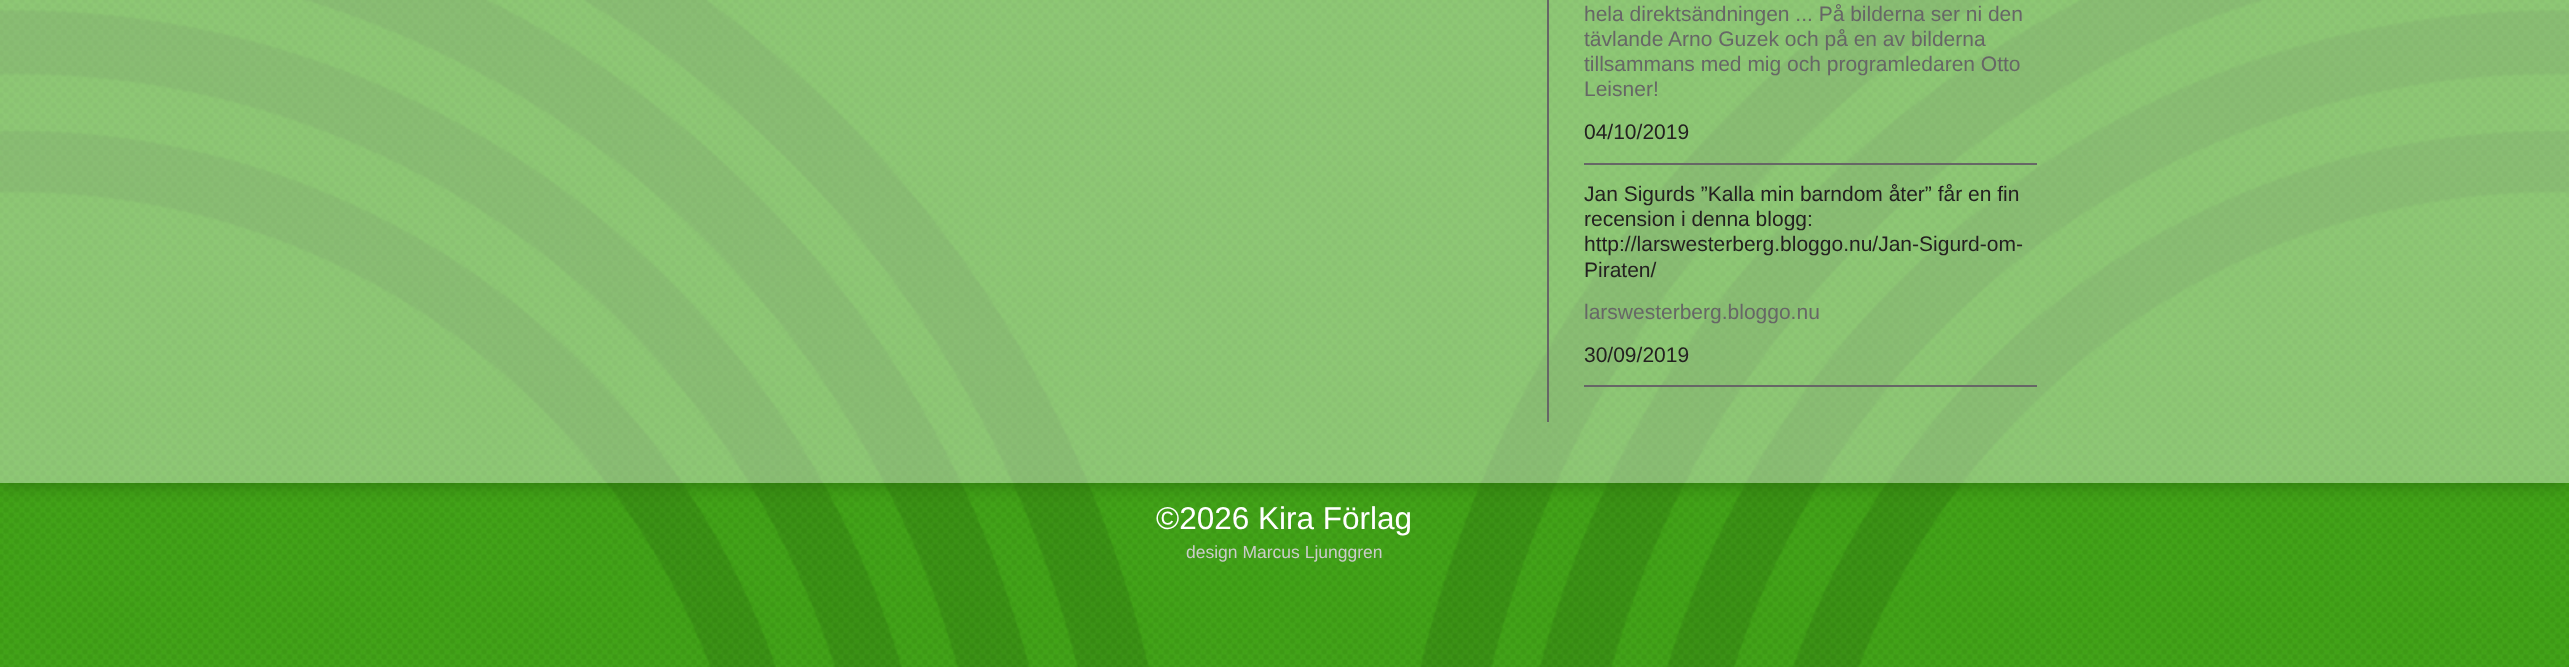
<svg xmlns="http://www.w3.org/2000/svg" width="2569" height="667">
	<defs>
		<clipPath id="clip1"><rect x="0" y="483" width="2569" height="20" /></clipPath>
	</defs>
	<rect width="100%" height="100%" fill="#41A317" />
	<image x="0" y="0" width="2569" height="667" href="assets/img1.png" />
	<image x="0" y="0" width="2569" height="667" href="assets/img2.png" />
	<g clip-path="url(#clip1)">
		<rect x="0" y="-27" width="2569" height="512" fill="#2D770D" filter="blur(9px)" />
	</g>
	<rect x="0" y="0" width="2569" height="483" fill="#FFFFFF" fill-opacity="0.4" />
	<rect x="1547" y="0" width="2" height="422" fill="#666666" />
	<rect x="1584" y="163" width="453" height="2" fill="#666666" />
	<g font-family="Liberation Sans" font-size="21" fill="#666666">
		<text x="1584" y="21">hela direktsändningen ... På bilderna ser ni den</text>
		<text x="1584" y="46">tävlande Arno Guzek och på en av bilderna</text>
		<text x="1584" y="71">tillsammans med mig och programledaren Otto</text>
		<text x="1584" y="96">Leisner!</text>
	</g>
	<text x="1584" y="139" font-family="Liberation Sans" font-size="21" fill="#232020">04/10/2019</text>
	<rect x="1584" y="385" width="453" height="2" fill="#666666" />
	<g font-family="Liberation Sans" font-size="21" fill="#232020">
		<text x="1584" y="201">Jan Sigurds ”Kalla min barndom åter” får en fin</text>
		<text x="1584" y="226">recension i denna blogg:</text>
		<text x="1584" y="251">http://larswesterberg.bloggo.nu/Jan-Sigurd-om-</text>
		<text x="1584" y="277">Piraten/</text>
	</g>
	<text x="1584" y="319" font-family="Liberation Sans" font-size="21" fill="#666666">larswesterberg.bloggo.nu</text>
	<text x="1584" y="362" font-family="Liberation Sans" font-size="21" fill="#232020">30/09/2019</text>
	<text x="1156" y="529" font-family="Liberation Sans" font-size="31.5" fill="#FFFFFF">©2026 Kira Förlag</text>
	<text x="1186" y="558" font-family="Liberation Sans" font-size="17.5" fill="#CCCCCC">design Marcus Ljunggren</text>
</svg>
